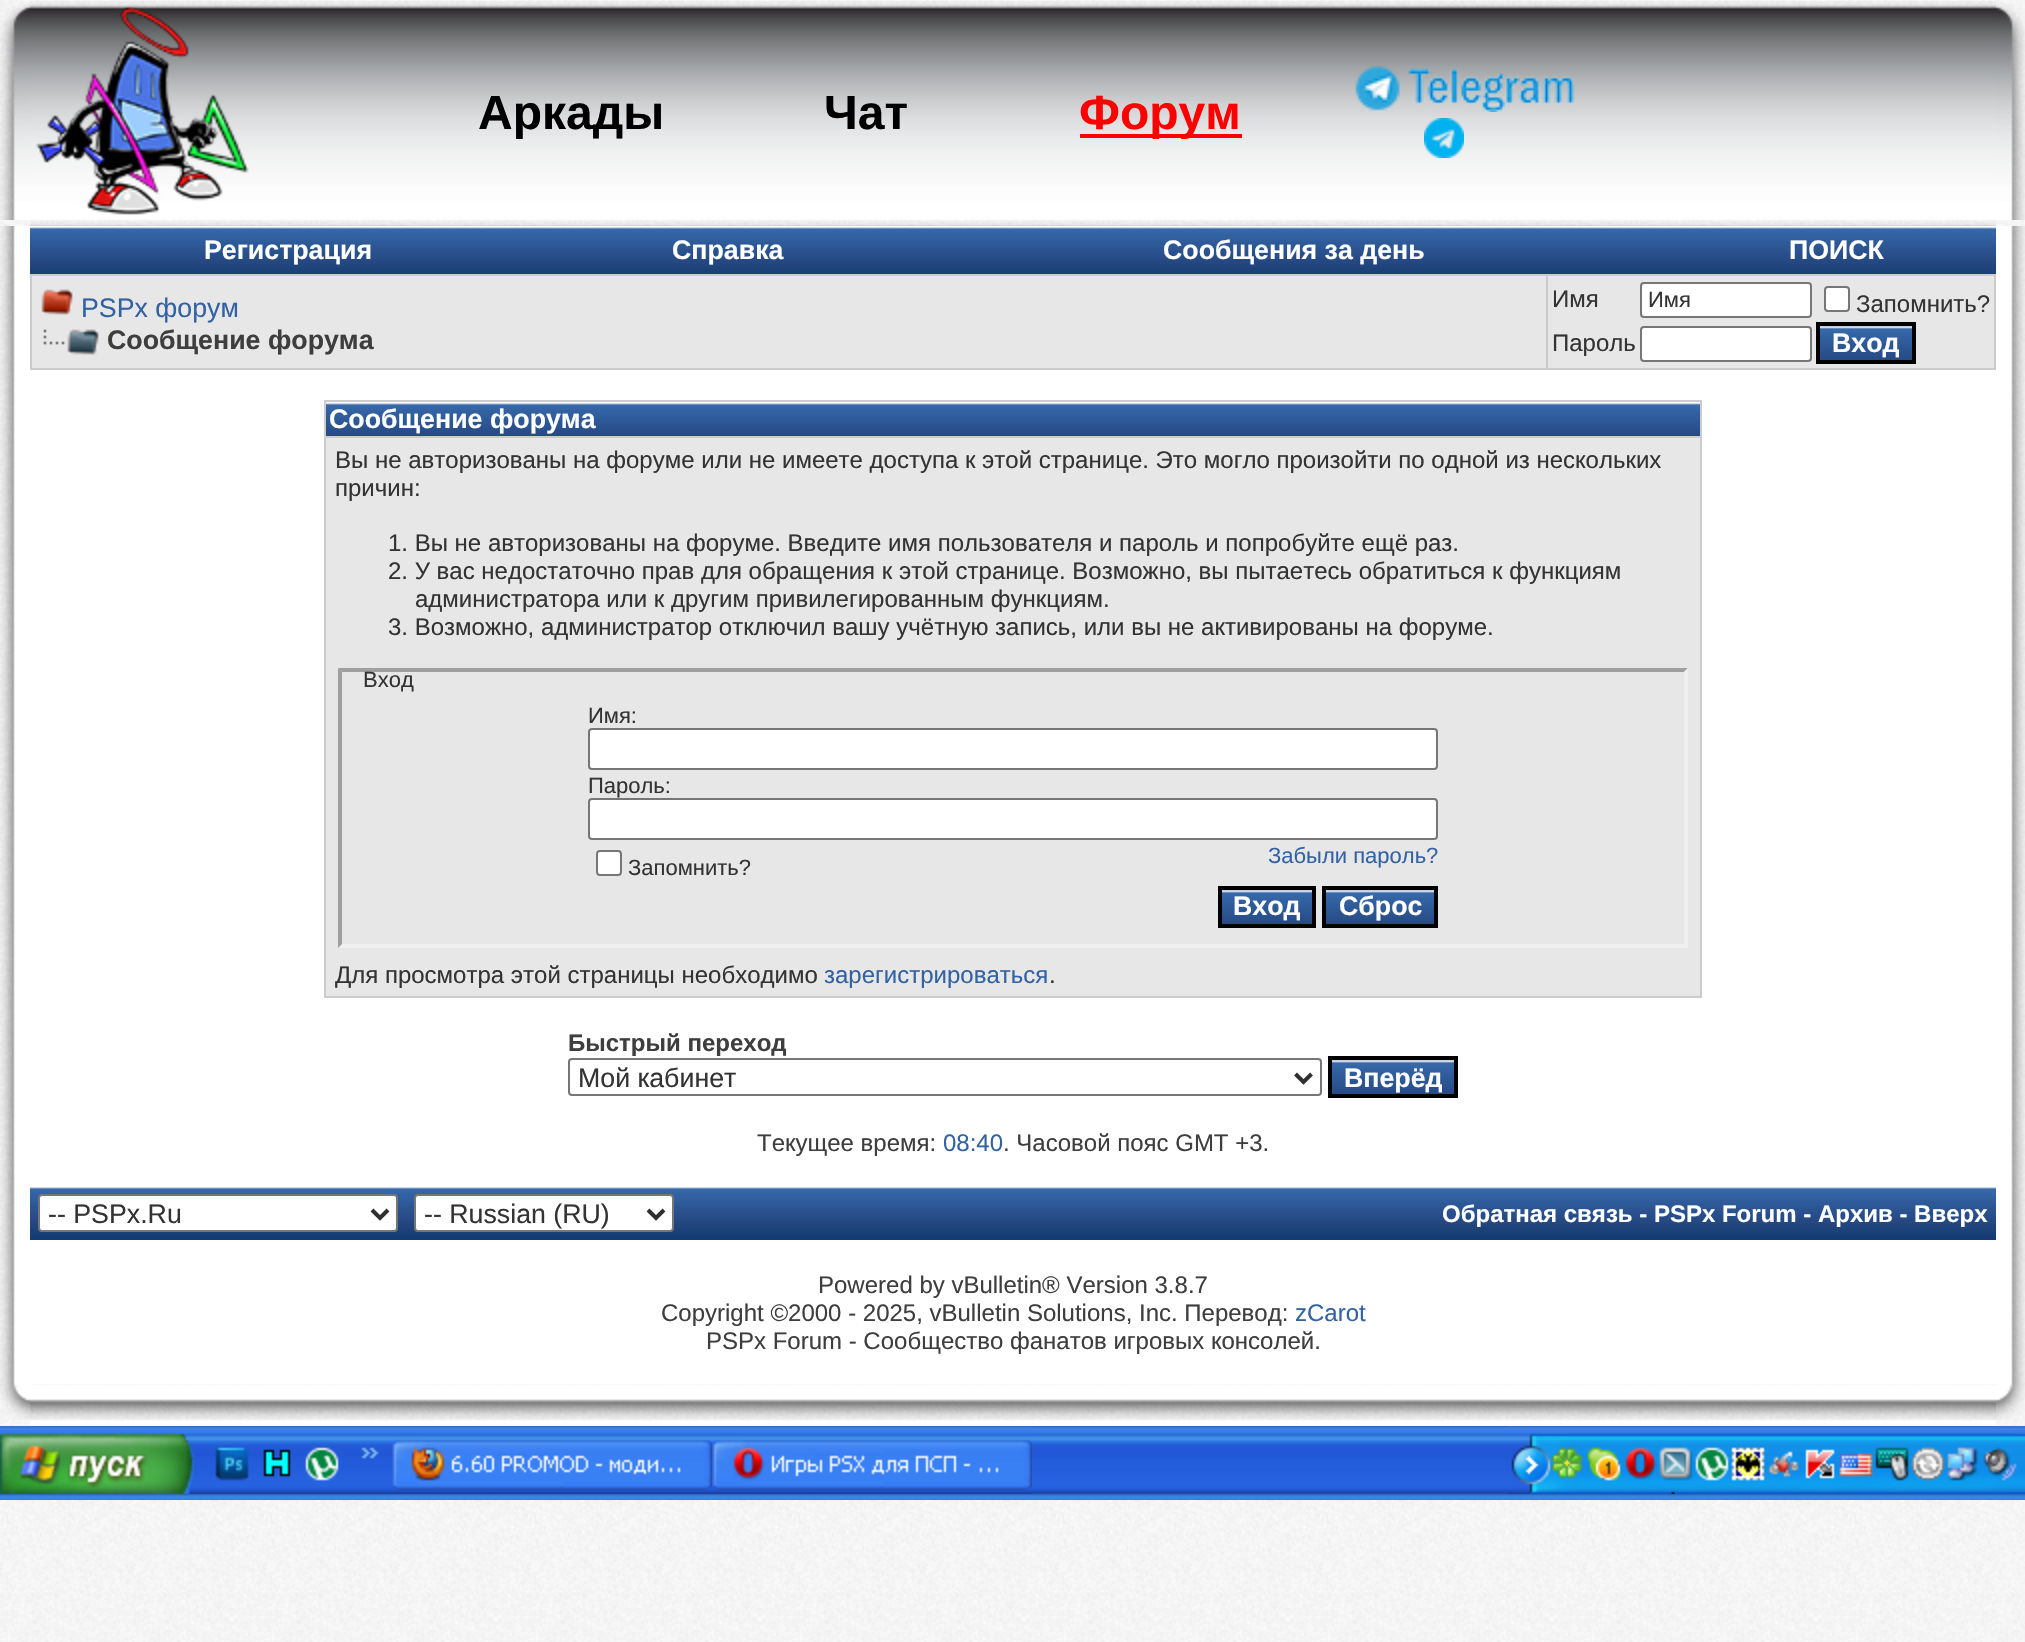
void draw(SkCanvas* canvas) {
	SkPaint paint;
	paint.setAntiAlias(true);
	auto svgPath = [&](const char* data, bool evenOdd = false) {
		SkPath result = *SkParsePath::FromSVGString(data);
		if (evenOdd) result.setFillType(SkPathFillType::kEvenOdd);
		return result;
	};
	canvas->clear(0xffffffff);
	canvas->drawImageRect(SkImages::DeferredFromEncodedData(SkData::MakeFromFileName("img1.png")), SkRect::MakeXYWH(0, 0, 2025, 1642), SkSamplingOptions());
	canvas->drawImageRect(SkImages::DeferredFromEncodedData(SkData::MakeFromFileName("img2.png")), SkRect::MakeXYWH(0, 2, 30, 218), SkSamplingOptions());
	canvas->drawImageRect(SkImages::DeferredFromEncodedData(SkData::MakeFromFileName("img3.png")), SkRect::MakeXYWH(30, 1, 1966, 225), SkSamplingOptions());
	canvas->drawImageRect(SkImages::DeferredFromEncodedData(SkData::MakeFromFileName("img4.png")), SkRect::MakeXYWH(35, 6, 214, 209), SkSamplingOptions());
	SkFont f1(fontMgr->matchFamilyStyle("Liberation Sans", SkFontStyle::Bold()), 48);
	f1.setSubpixel(true);
	paint.setColor(0xff000000);
	canvas->drawString("Аркады", 478, 129, f1, paint);
	canvas->drawString("Чат", 824, 129, f1, paint);
	paint.setColor(0xffff0000);
	canvas->drawRect(SkRect::MakeXYWH(1080, 134, 162, 4), paint);
	canvas->drawString("Форум", 1079, 129, f1, paint);
	canvas->drawImageRect(SkImages::DeferredFromEncodedData(SkData::MakeFromFileName("img5.png")), SkRect::MakeXYWH(1355, 65, 220, 47), SkSamplingOptions());
	canvas->drawImageRect(SkImages::DeferredFromEncodedData(SkData::MakeFromFileName("img6.png")), SkRect::MakeXYWH(1424, 118, 40, 40), SkSamplingOptions());
	canvas->drawImageRect(SkImages::DeferredFromEncodedData(SkData::MakeFromFileName("img7.png")), SkRect::MakeXYWH(1996, 2, 29, 218), SkSamplingOptions());
	canvas->drawImageRect(SkImages::DeferredFromEncodedData(SkData::MakeFromFileName("img8.png")), SkRect::MakeXYWH(0, 226, 30, 1158), SkSamplingOptions());
	paint.setColor(0xffffffff);
	canvas->drawRect(SkRect::MakeXYWH(30, 370, 1966, 1014), paint);
	canvas->drawImageRect(SkImages::DeferredFromEncodedData(SkData::MakeFromFileName("img9.png")), SkRect::MakeXYWH(30, 226, 516, 48), SkSamplingOptions());
	SkFont f2(fontMgr->matchFamilyStyle("Liberation Sans", SkFontStyle::Bold()), 26.75);
	f2.setSubpixel(true);
	canvas->drawString("Регистрация", 204, 259, f2, paint);
	canvas->drawImageRect(SkImages::DeferredFromEncodedData(SkData::MakeFromFileName("img10.png")), SkRect::MakeXYWH(546, 226, 364, 48), SkSamplingOptions());
	canvas->drawString("Справка", 672, 259, f2, paint);
	canvas->drawImageRect(SkImages::DeferredFromEncodedData(SkData::MakeFromFileName("img11.png")), SkRect::MakeXYWH(910, 226, 766, 48), SkSamplingOptions());
	canvas->drawString("Сообщения за день", 1163, 259, f2, paint);
	canvas->drawImageRect(SkImages::DeferredFromEncodedData(SkData::MakeFromFileName("img12.png")), SkRect::MakeXYWH(1676, 226, 320, 48), SkSamplingOptions());
	canvas->drawString("ПОИСК", 1789, 259, f2, paint);
	paint.setColor(0xffcccccc);
	canvas->drawRect(SkRect::MakeXYWH(30, 274, 1966, 96), paint);
	paint.setColor(0xffe7e7e7);
	canvas->drawRect(SkRect::MakeXYWH(32, 276, 1514, 92), paint);
	canvas->drawImageRect(SkImages::DeferredFromEncodedData(SkData::MakeFromFileName("img13.png")), SkRect::MakeXYWH(41, 289, 32, 26), SkSamplingOptions());
	SkFont f3(fontMgr->matchFamilyStyle("Liberation Sans", SkFontStyle::Normal()), 26.75);
	f3.setSubpixel(true);
	paint.setColor(0xff3362a3);
	canvas->drawString("PSPx форум", 81, 317, f3, paint);
	canvas->drawImageRect(SkImages::DeferredFromEncodedData(SkData::MakeFromFileName("img14.png")), SkRect::MakeXYWH(43, 329, 56, 26), SkSamplingOptions());
	paint.setColor(0xff3e3e3e);
	canvas->drawString("Сообщение форума", 107, 349, f2, paint);
	paint.setColor(0xffe7e7e7);
	canvas->drawRect(SkRect::MakeXYWH(1548, 276, 446, 92), paint);
	SkFont f4(fontMgr->matchFamilyStyle("Liberation Sans", SkFontStyle::Normal()), 24);
	f4.setSubpixel(true);
	paint.setColor(0xff333333);
	canvas->drawString("Имя", 1552, 307, f4, paint);
	paint.setColor(0xffffffff);
	canvas->drawRoundRect(SkRect::MakeXYWH(1641, 283, 170, 34), 3, 3, paint);
	paint.setStroke(true);
	paint.setStrokeWidth(2);
	paint.setColor(0xff767676);
	canvas->drawRoundRect(SkRect::MakeXYWH(1641, 283, 170, 34), 3, 3, paint);
	SkFont f5(fontMgr->matchFamilyStyle("Liberation Sans", SkFontStyle::Normal()), 22);
	f5.setSubpixel(true);
	paint.setStroke(false);
	paint.setColor(0xff333333);
	canvas->drawString("Имя", 1648, 307, f5, paint);
	paint.setColor(0xffffffff);
	canvas->drawRoundRect(SkRect::MakeXYWH(1825, 287, 24, 24), 3, 3, paint);
	paint.setStroke(true);
	paint.setColor(0xff767676);
	canvas->drawRoundRect(SkRect::MakeXYWH(1825, 287, 24, 24), 3, 3, paint);
	paint.setStroke(false);
	paint.setColor(0xff333333);
	canvas->drawString("Запомнить?", 1856, 312, f4, paint);
	canvas->drawString("Пароль", 1552, 351, f4, paint);
	paint.setColor(0xffffffff);
	canvas->drawRoundRect(SkRect::MakeXYWH(1641, 327, 170, 34), 3, 3, paint);
	paint.setStroke(true);
	paint.setColor(0xff767676);
	canvas->drawRoundRect(SkRect::MakeXYWH(1641, 327, 170, 34), 3, 3, paint);
	canvas->drawImageRect(SkImages::DeferredFromEncodedData(SkData::MakeFromFileName("img15.png")), SkRect::MakeXYWH(1820, 326, 92, 34), SkSamplingOptions());
	paint.setStrokeWidth(4);
	paint.setColor(0xff000000);
	canvas->drawRect(SkRect::MakeXYWH(1818, 324, 96, 38), paint);
	paint.setStroke(false);
	paint.setColor(0xffffffff);
	canvas->drawString("Вход", 1832, 352, f2, paint);
	paint.setColor(0xffcccccc);
	canvas->drawRect(SkRect::MakeXYWH(324, 400, 1378, 598), paint);
	canvas->drawImageRect(SkImages::DeferredFromEncodedData(SkData::MakeFromFileName("img16.png")), SkRect::MakeXYWH(326, 402, 1374, 34), SkSamplingOptions());
	paint.setColor(0xffffffff);
	canvas->drawString("Сообщение форума", 329, 428, f2, paint);
	paint.setColor(0xffe7e7e7);
	canvas->drawRect(SkRect::MakeXYWH(326, 438, 1374, 558), paint);
	paint.setColor(0xff333333);
	canvas->drawString("Вы не авторизованы на форуме или не имеете доступа к этой странице. Это могло произойти по одной из нескольких", 335, 468, f4, paint);
	canvas->drawString("причин:", 335, 496, f4, paint);
	canvas->drawString("1. Вы не авторизованы на форуме. Введите имя пользователя и пароль и попробуйте ещё раз.", 388, 551, f4, paint);
	canvas->drawString("2. У вас недостаточно прав для обращения к этой странице. Возможно, вы пытаетесь обратиться к функциям", 388, 579, f4, paint);
	canvas->drawString("администратора или к другим привилегированным функциям.", 415, 607, f4, paint);
	canvas->drawString("3. Возможно, администратор отключил вашу учётную запись, или вы не активированы на форуме.", 388, 635, f4, paint);
	paint.setColor(0xff9f9f9f);
	canvas->drawPath(svgPath("M338 668H1688L1684 672H342Z"), paint);
	paint.setColor(0xffefefef);
	canvas->drawPath(svgPath("M1688 668V948L1684 944V672Z"), paint);
	canvas->drawPath(svgPath("M1688 948H338L342 944H1684Z"), paint);
	paint.setColor(0xff9f9f9f);
	canvas->drawPath(svgPath("M338 948V668L342 672V944Z"), paint);
	paint.setColor(0xff333333);
	canvas->drawString("Вход", 363, 687, f5, paint);
	canvas->drawString("Имя:", 588, 723, f5, paint);
	paint.setColor(0xffffffff);
	canvas->drawRoundRect(SkRect::MakeXYWH(589, 729, 848, 40), 3, 3, paint);
	paint.setStroke(true);
	paint.setStrokeWidth(2);
	paint.setColor(0xff767676);
	canvas->drawRoundRect(SkRect::MakeXYWH(589, 729, 848, 40), 3, 3, paint);
	paint.setStroke(false);
	paint.setColor(0xff333333);
	canvas->drawString("Пароль:", 588, 793, f5, paint);
	paint.setColor(0xffffffff);
	canvas->drawRoundRect(SkRect::MakeXYWH(589, 799, 848, 40), 3, 3, paint);
	paint.setStroke(true);
	paint.setColor(0xff767676);
	canvas->drawRoundRect(SkRect::MakeXYWH(589, 799, 848, 40), 3, 3, paint);
	paint.setStroke(false);
	paint.setColor(0xffffffff);
	canvas->drawRoundRect(SkRect::MakeXYWH(597, 851, 24, 24), 3, 3, paint);
	paint.setStroke(true);
	paint.setColor(0xff767676);
	canvas->drawRoundRect(SkRect::MakeXYWH(597, 851, 24, 24), 3, 3, paint);
	paint.setStroke(false);
	paint.setColor(0xff333333);
	canvas->drawString("Запомнить?", 628, 875, f5, paint);
	paint.setColor(0xff3362a3);
	canvas->drawString("Забыли пароль?", 1268, 863, f5, paint);
	canvas->drawImageRect(SkImages::DeferredFromEncodedData(SkData::MakeFromFileName("img17.png")), SkRect::MakeXYWH(1222, 890, 90, 34), SkSamplingOptions());
	paint.setStroke(true);
	paint.setStrokeWidth(4);
	paint.setColor(0xff000000);
	canvas->drawRect(SkRect::MakeXYWH(1220, 888, 94, 38), paint);
	paint.setStroke(false);
	paint.setColor(0xffffffff);
	canvas->drawString("Вход", 1233, 915, f2, paint);
	canvas->drawImageRect(SkImages::DeferredFromEncodedData(SkData::MakeFromFileName("img18.png")), SkRect::MakeXYWH(1326, 890, 108, 34), SkSamplingOptions());
	paint.setStroke(true);
	paint.setColor(0xff000000);
	canvas->drawRect(SkRect::MakeXYWH(1324, 888, 112, 38), paint);
	paint.setStroke(false);
	paint.setColor(0xffffffff);
	canvas->drawString("Сброс", 1339, 915, f2, paint);
	paint.setColor(0xff333333);
	canvas->drawString("Для просмотра этой страницы необходимо", 335, 983, f4, paint);
	paint.setColor(0xff3362a3);
	canvas->drawString("зарегистрироваться", 824, 983, f4, paint);
	paint.setColor(0xff333333);
	canvas->drawString(".", 1049, 983, f4, paint);
	SkFont f6(fontMgr->matchFamilyStyle("Liberation Sans", SkFontStyle::Bold()), 24);
	f6.setSubpixel(true);
	paint.setColor(0xff3e3e3e);
	canvas->drawString("Быстрый переход", 568, 1051, f6, paint);
	paint.setStroke(true);
	paint.setStrokeWidth(2);
	paint.setColor(0xff767676);
	canvas->drawRoundRect(SkRect::MakeXYWH(569, 1059, 752, 36), 3, 3, paint);
	paint.setStrokeWidth(4);
	paint.setColor(0xff2f2f2f);
	canvas->drawPath(svgPath("M1295.5 1074L1303.5 1082L1311.5 1074"), paint);
	paint.setStroke(false);
	paint.setColor(0xff333333);
	canvas->drawString("Мой кабинет", 578, 1087, f3, paint);
	canvas->drawImageRect(SkImages::DeferredFromEncodedData(SkData::MakeFromFileName("img19.png")), SkRect::MakeXYWH(1332, 1060, 122, 34), SkSamplingOptions());
	paint.setStroke(true);
	paint.setColor(0xff000000);
	canvas->drawRect(SkRect::MakeXYWH(1330, 1058, 126, 38), paint);
	paint.setStroke(false);
	paint.setColor(0xffffffff);
	canvas->drawString("Вперёд", 1344, 1087, f2, paint);
	paint.setColor(0xff3e3e3e);
	canvas->drawString("Текущее время:", 757, 1151, f4, paint);
	paint.setColor(0xff3362a3);
	canvas->drawString("08:40", 943, 1151, f4, paint);
	paint.setColor(0xff3e3e3e);
	canvas->drawString(". Часовой пояс GMT +3.", 1003, 1151, f4, paint);
	canvas->drawImageRect(SkImages::DeferredFromEncodedData(SkData::MakeFromFileName("img20.png")), SkRect::MakeXYWH(30, 1186, 376, 54), SkSamplingOptions());
	paint.setColor(0xffffffff);
	canvas->drawRoundRect(SkRect::MakeXYWH(39, 1195, 358, 36), 3, 3, paint);
	paint.setStroke(true);
	paint.setStrokeWidth(2);
	paint.setColor(0xff767676);
	canvas->drawRoundRect(SkRect::MakeXYWH(39, 1195, 358, 36), 3, 3, paint);
	paint.setStrokeWidth(4);
	paint.setColor(0xff2f2f2f);
	canvas->drawPath(svgPath("M372 1210L380 1218L388 1210"), paint);
	paint.setStroke(false);
	paint.setColor(0xff333333);
	canvas->drawString("-- PSPx.Ru", 48, 1223, f3, paint);
	canvas->drawImageRect(SkImages::DeferredFromEncodedData(SkData::MakeFromFileName("img21.png")), SkRect::MakeXYWH(406, 1186, 276, 54), SkSamplingOptions());
	paint.setColor(0xffffffff);
	canvas->drawRoundRect(SkRect::MakeXYWH(415, 1195, 258, 36), 3, 3, paint);
	paint.setStroke(true);
	paint.setStrokeWidth(2);
	paint.setColor(0xff767676);
	canvas->drawRoundRect(SkRect::MakeXYWH(415, 1195, 258, 36), 3, 3, paint);
	paint.setStrokeWidth(4);
	paint.setColor(0xff2f2f2f);
	canvas->drawPath(svgPath("M648 1210L656 1218L664 1210"), paint);
	paint.setStroke(false);
	paint.setColor(0xff333333);
	canvas->drawString("-- Russian (RU)", 424, 1223, f3, paint);
	canvas->drawImageRect(SkImages::DeferredFromEncodedData(SkData::MakeFromFileName("img22.png")), SkRect::MakeXYWH(682, 1186, 1314, 54), SkSamplingOptions());
	paint.setColor(0xffffffff);
	canvas->drawString("Обратная связь - PSPx Forum - Архив - Вверх", 1442, 1222, f6, paint);
	paint.setColor(0xff3e3e3e);
	canvas->drawString("Powered by vBulletin® Version 3.8.7", 818, 1293, f4, paint);
	canvas->drawString("Copyright ©2000 - 2025, vBulletin Solutions, Inc. Перевод:", 661, 1321, f4, paint);
	paint.setColor(0xff3362a3);
	canvas->drawString("zCarot", 1295, 1321, f4, paint);
	paint.setColor(0xff3e3e3e);
	canvas->drawString("PSPx Forum - Сообщество фанатов игровых консолей.", 706, 1349, f4, paint);
	canvas->drawImageRect(SkImages::DeferredFromEncodedData(SkData::MakeFromFileName("img23.png")), SkRect::MakeXYWH(1996, 226, 29, 1158), SkSamplingOptions());
	canvas->drawImageRect(SkImages::DeferredFromEncodedData(SkData::MakeFromFileName("img24.png")), SkRect::MakeXYWH(0, 1384, 30, 36), SkSamplingOptions());
	canvas->drawImageRect(SkImages::DeferredFromEncodedData(SkData::MakeFromFileName("img25.png")), SkRect::MakeXYWH(30, 1384, 1966, 42), SkSamplingOptions());
	canvas->drawImageRect(SkImages::DeferredFromEncodedData(SkData::MakeFromFileName("img26.png")), SkRect::MakeXYWH(1996, 1384, 29, 36), SkSamplingOptions());
	canvas->drawImageRect(SkImages::DeferredFromEncodedData(SkData::MakeFromFileName("img27.png")), SkRect::MakeXYWH(0, 1426, 2025, 74), SkSamplingOptions());
	canvas->drawImageRect(SkImages::DeferredFromEncodedData(SkData::MakeFromFileName("img28.png")), SkRect::MakeXYWH(0, 1426, 200, 68), SkSamplingOptions());
	canvas->drawImageRect(SkImages::DeferredFromEncodedData(SkData::MakeFromFileName("img29.png")), SkRect::MakeXYWH(200, 1426, 56, 68), SkSamplingOptions());
	canvas->drawImageRect(SkImages::DeferredFromEncodedData(SkData::MakeFromFileName("img30.png")), SkRect::MakeXYWH(256, 1426, 42, 68), SkSamplingOptions());
	canvas->drawImageRect(SkImages::DeferredFromEncodedData(SkData::MakeFromFileName("img31.png")), SkRect::MakeXYWH(298, 1426, 48, 68), SkSamplingOptions());
	canvas->drawImageRect(SkImages::DeferredFromEncodedData(SkData::MakeFromFileName("img32.png")), SkRect::MakeXYWH(346, 1426, 46, 68), SkSamplingOptions());
	canvas->drawImageRect(SkImages::DeferredFromEncodedData(SkData::MakeFromFileName("img33.png")), SkRect::MakeXYWH(392, 1426, 320, 68), SkSamplingOptions());
	canvas->drawImageRect(SkImages::DeferredFromEncodedData(SkData::MakeFromFileName("img34.png")), SkRect::MakeXYWH(712, 1426, 320, 68), SkSamplingOptions());
	canvas->drawImageRect(SkImages::DeferredFromEncodedData(SkData::MakeFromFileName("img35.png")), SkRect::MakeXYWH(1508, 1426, 517, 68), SkSamplingOptions());
}
